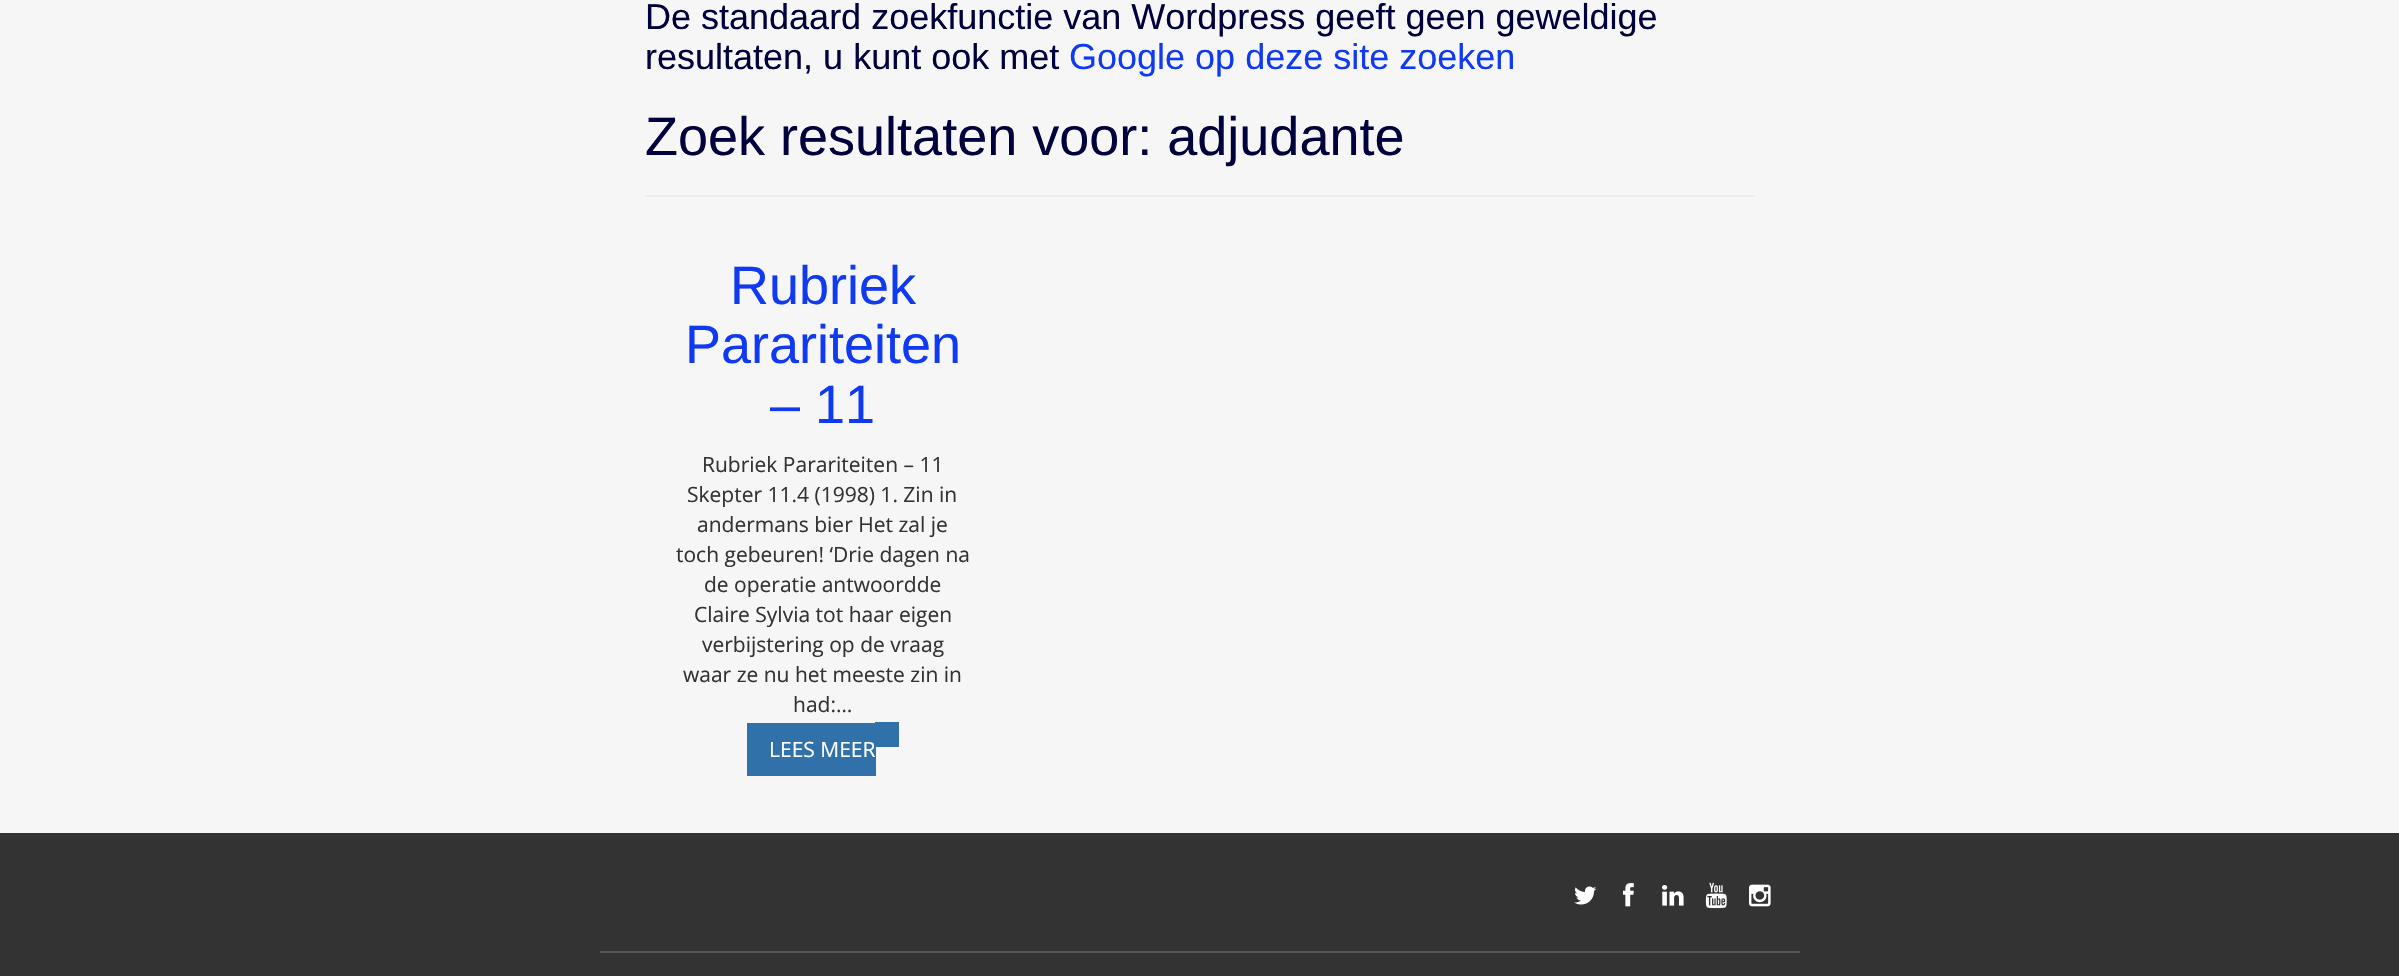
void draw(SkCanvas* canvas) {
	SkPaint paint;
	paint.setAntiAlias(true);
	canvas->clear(0xfff6f6f6);
	paint.setColor(0xffeeeeee);
	canvas->drawRect(SkRect::MakeXYWH(645, 195, 1110, 2), paint);
	SkFont f1(fontMgr->matchFamilyStyle("Liberation Sans", SkFontStyle::Normal()), 36);
	f1.setSubpixel(true);
	paint.setColor(0xff00003d);
	canvas->drawString("De standaard zoekfunctie van Wordpress geeft geen geweldige", 645, 29, f1, paint);
	canvas->drawString("resultaten, u kunt ook met", 645, 69, f1, paint);
	paint.setColor(0xff103af2);
	canvas->drawString("Google op deze site zoeken", 1069, 69, f1, paint);
	SkFont f2(fontMgr->matchFamilyStyle("Liberation Sans", SkFontStyle::Normal()), 54);
	f2.setSubpixel(true);
	paint.setColor(0xff00003d);
	canvas->drawString("Zoek resultaten voor: adjudante", 645, 155, f2, paint);
	paint.setColor(0xff103af2);
	canvas->drawString("Rubriek", 730, 304, f2, paint);
	canvas->drawString("Parariteiten", 685, 363, f2, paint);
	canvas->drawString("– 11", 770, 423, f2, paint);
	SkFont f3(fontMgr->matchFamilyStyle("Open Sans", SkFontStyle::Normal()), 21);
	f3.setSubpixel(true);
	paint.setColor(0xff333333);
	canvas->drawString("Rubriek Parariteiten – 11", 702, 472, f3, paint);
	canvas->drawString("Skepter 11.4 (1998) 1. Zin in", 687, 502, f3, paint);
	canvas->drawString("andermans bier Het zal je", 697, 532, f3, paint);
	canvas->drawString("toch gebeuren! ‘Drie dagen na", 676, 562, f3, paint);
	canvas->drawString("de operatie antwoordde", 704, 592, f3, paint);
	canvas->drawString("Claire Sylvia tot haar eigen", 694, 622, f3, paint);
	canvas->drawString("verbijstering op de vraag", 702, 652, f3, paint);
	canvas->drawString("waar ze nu het meeste zin in", 683, 682, f3, paint);
	canvas->drawString("had:…", 793, 712, f3, paint);
	paint.setColor(0xff3071a9);
	canvas->drawRect(SkRect::MakeXYWH(747, 723, 129, 53), paint);
	canvas->drawRect(SkRect::MakeXYWH(875, 722, 24, 25), paint);
	paint.setColor(0xffffffff);
	canvas->drawString("LEES MEER", 769, 757, f3, paint);
	paint.setColor(0xff333333);
	canvas->drawRect(SkRect::MakeXYWH(0, 833, 2399, 143), paint);
	paint.setColor(0xff555555);
	canvas->drawRect(SkRect::MakeXYWH(600, 951, 1200, 2), paint);
	canvas->drawImageRect(SkImages::DeferredFromEncodedData(SkData::MakeFromFileName("img1.png")), SkRect::MakeXYWH(1574, 886, 23, 19), SkSamplingOptions());
	canvas->drawImageRect(SkImages::DeferredFromEncodedData(SkData::MakeFromFileName("img2.png")), SkRect::MakeXYWH(1623, 883, 11, 24), SkSamplingOptions());
	canvas->drawImageRect(SkImages::DeferredFromEncodedData(SkData::MakeFromFileName("img3.png")), SkRect::MakeXYWH(1662, 885, 22, 21), SkSamplingOptions());
	canvas->drawImageRect(SkImages::DeferredFromEncodedData(SkData::MakeFromFileName("img4.png")), SkRect::MakeXYWH(1705, 882, 22, 27), SkSamplingOptions());
	canvas->drawImageRect(SkImages::DeferredFromEncodedData(SkData::MakeFromFileName("img5.png")), SkRect::MakeXYWH(1749, 884, 22, 23), SkSamplingOptions());
}
